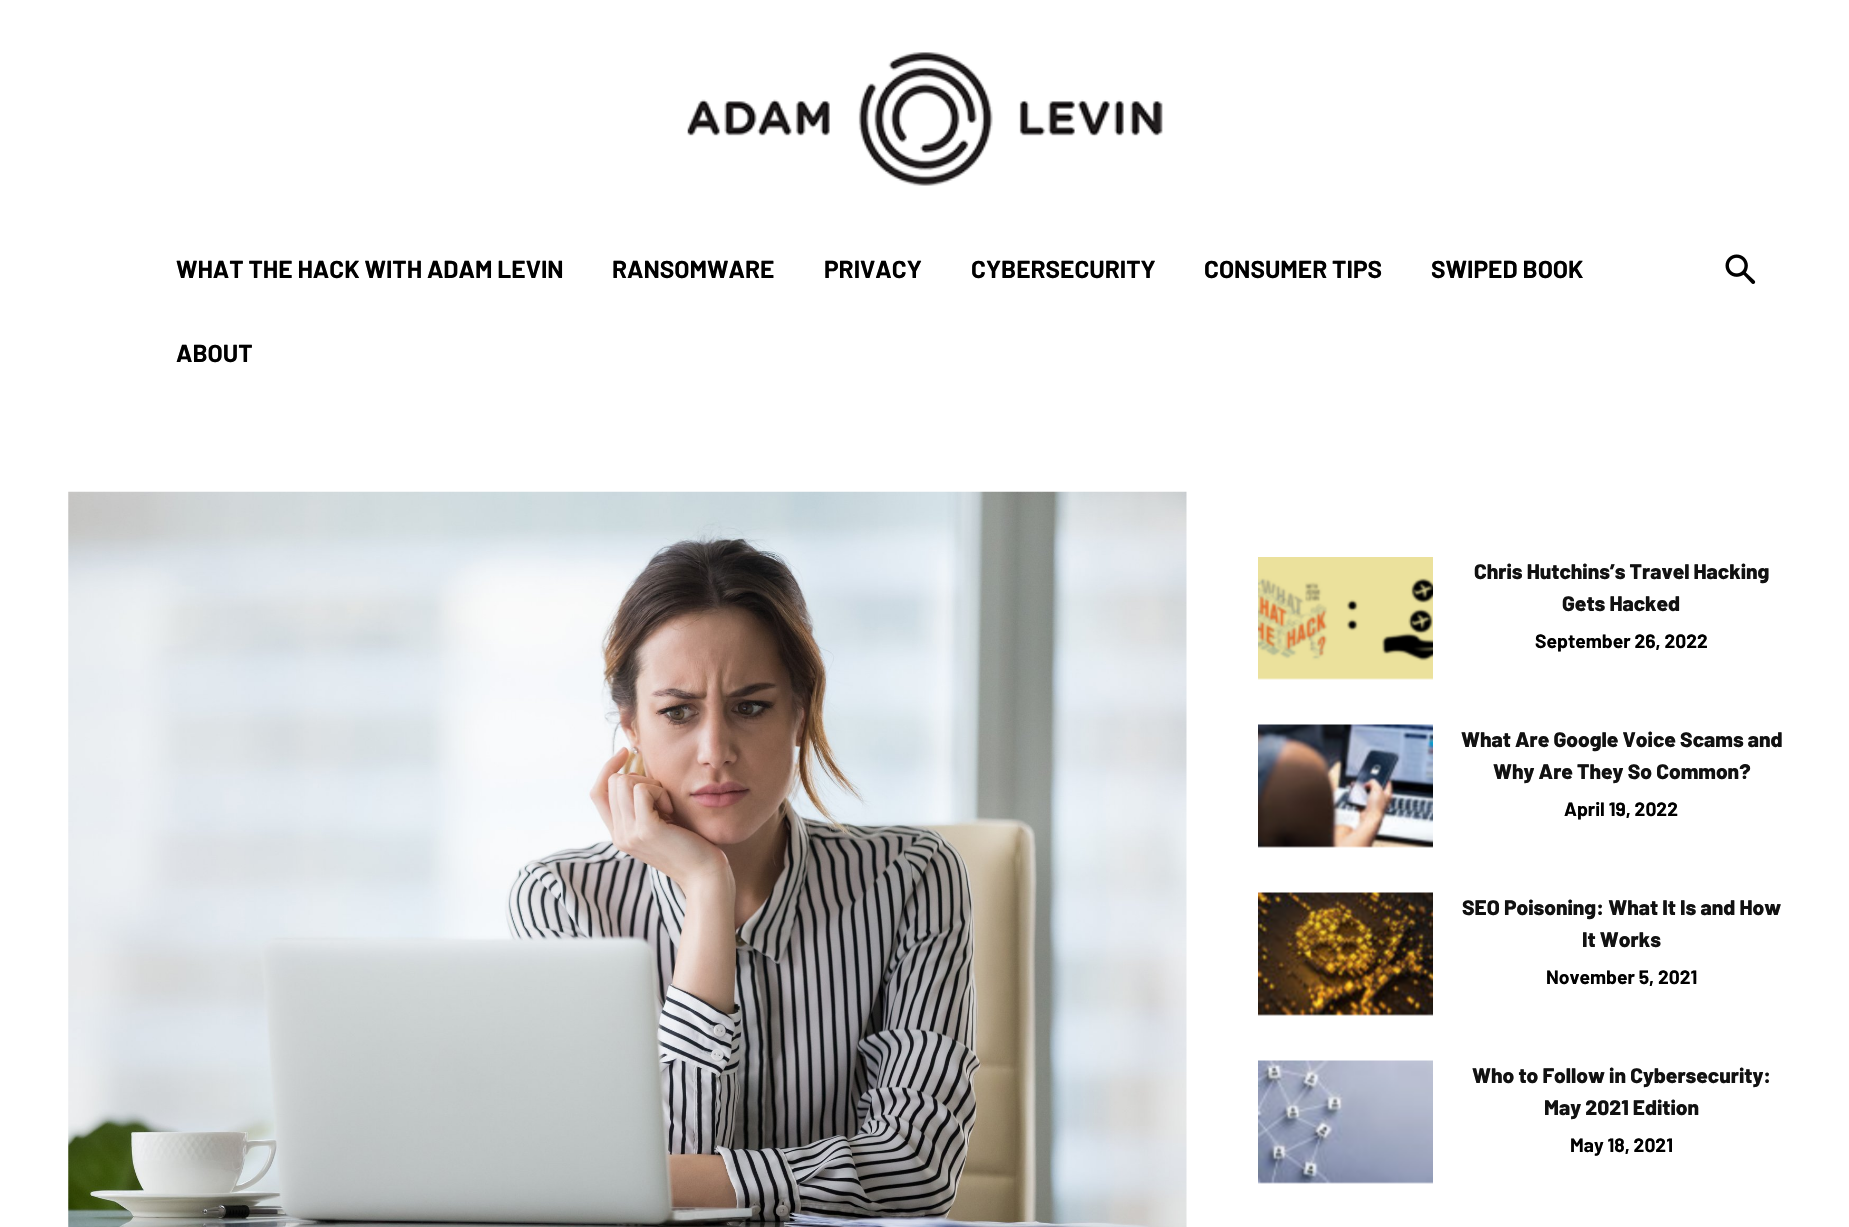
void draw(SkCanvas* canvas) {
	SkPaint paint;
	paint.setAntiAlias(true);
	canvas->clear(0xffffffff);
	canvas->drawImageRect(SkImages::DeferredFromEncodedData(SkData::MakeFromFileName("img1.png")), SkRect::MakeXYWH(687, 52, 476, 134), SkSamplingOptions());
	SkFont f1(fontMgr->matchFamilyStyle("Barlow", SkFontStyle::Bold()), 24.5);
	f1.setSubpixel(true);
	paint.setColor(0xff000000);
	canvas->drawString("WHAT THE HACK WITH ADAM LEVIN", 176, 278, f1, paint);
	canvas->drawString("RANSOMWARE", 612, 278, f1, paint);
	canvas->drawString("PRIVACY", 824, 278, f1, paint);
	canvas->drawString("CYBERSECURITY", 971, 278, f1, paint);
	canvas->drawString("CONSUMER TIPS", 1204, 278, f1, paint);
	canvas->drawString("SWIPED BOOK", 1431, 278, f1, paint);
	canvas->drawString("ABOUT", 176, 362, f1, paint);
	canvas->drawImageRect(SkImages::DeferredFromEncodedData(SkData::MakeFromFileName("img2.png")), SkRect::MakeXYWH(1725, 254, 31, 30), SkSamplingOptions());
	canvas->drawImageRect(SkImages::DeferredFromEncodedData(SkData::MakeFromFileName("img3.png")), SkRect::MakeXYWH(68, 491, 1119, 736), SkSamplingOptions());
	canvas->drawImageRect(SkImages::DeferredFromEncodedData(SkData::MakeFromFileName("img4.png")), SkRect::MakeXYWH(1258, 557, 175, 123), SkSamplingOptions());
	SkFont f2(fontMgr->matchFamilyStyle("Barlow", SkFontStyle(800, SkFontStyle::kNormal_Width, SkFontStyle::kUpright_Slant)), 21);
	f2.setSubpixel(true);
	paint.setColor(0xff111111);
	canvas->drawString("Chris Hutchins’s Travel Hacking", 1474, 579, f2, paint);
	canvas->drawString("Gets Hacked", 1562, 611, f2, paint);
	SkFont f3(fontMgr->matchFamilyStyle("Barlow", SkFontStyle::Bold()), 19.25);
	f3.setSubpixel(true);
	paint.setColor(0xff000000);
	canvas->drawString("September 26, 2022", 1535, 648, f3, paint);
	canvas->drawImageRect(SkImages::DeferredFromEncodedData(SkData::MakeFromFileName("img5.png")), SkRect::MakeXYWH(1258, 724, 175, 124), SkSamplingOptions());
	paint.setColor(0xff111111);
	canvas->drawString("What Are Google Voice Scams and", 1461, 747, f2, paint);
	canvas->drawString("Why Are They So Common?", 1493, 779, f2, paint);
	paint.setColor(0xff000000);
	canvas->drawString("April 19, 2022", 1564, 816, f3, paint);
	canvas->drawImageRect(SkImages::DeferredFromEncodedData(SkData::MakeFromFileName("img6.png")), SkRect::MakeXYWH(1258, 892, 175, 124), SkSamplingOptions());
	paint.setColor(0xff111111);
	canvas->drawString("SEO Poisoning: What It Is and How", 1462, 915, f2, paint);
	canvas->drawString("It Works", 1582, 947, f2, paint);
	paint.setColor(0xff000000);
	canvas->drawString("November 5, 2021", 1546, 984, f3, paint);
	canvas->drawImageRect(SkImages::DeferredFromEncodedData(SkData::MakeFromFileName("img7.png")), SkRect::MakeXYWH(1258, 1060, 175, 124), SkSamplingOptions());
	paint.setColor(0xff111111);
	canvas->drawString("Who to Follow in Cybersecurity:", 1472, 1083, f2, paint);
	canvas->drawString("May 2021 Edition", 1544, 1115, f2, paint);
	paint.setColor(0xff000000);
	canvas->drawString("May 18, 2021", 1570, 1152, f3, paint);
}
